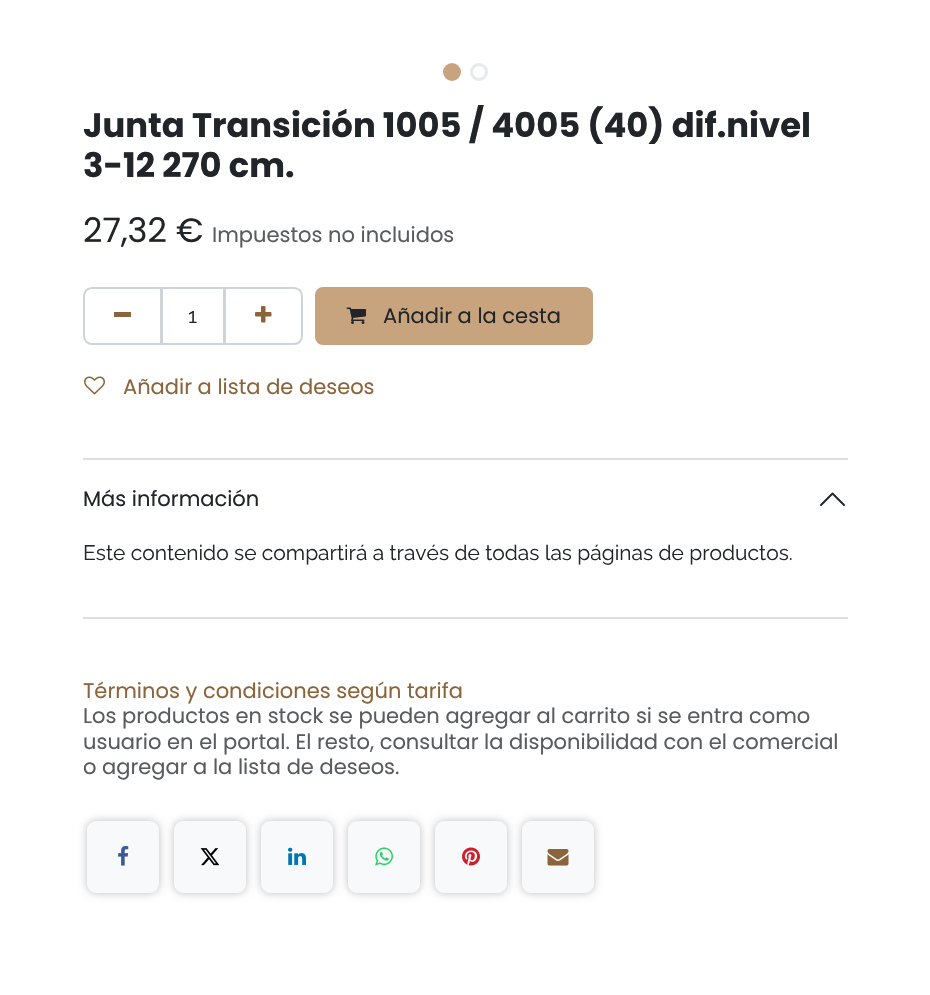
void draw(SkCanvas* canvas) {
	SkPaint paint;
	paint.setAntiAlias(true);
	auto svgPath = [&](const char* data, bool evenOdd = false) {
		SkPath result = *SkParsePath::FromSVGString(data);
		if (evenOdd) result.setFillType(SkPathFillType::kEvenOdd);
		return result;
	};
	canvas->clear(0xffffffff);
	paint.setColor(0xffc8a47e);
	canvas->drawCircle(452, 72, 7.5, paint);
	paint.setStroke(true);
	paint.setStrokeWidth(3);
	canvas->drawCircle(452, 72, 7.5, paint);
	paint.setColor(0xffe7eaed);
	canvas->drawCircle(479, 72, 7.5, paint);
	SkFont f1(fontMgr->matchFamilyStyle("Poppins", SkFontStyle::Bold()), 33.8);
	f1.setSubpixel(true);
	paint.setStroke(false);
	paint.setColor(0xff212529);
	canvas->drawString("Junta Transición 1005 / 4005 (40) dif.nivel", 83, 137, f1, paint);
	canvas->drawString("3-12 270 cm.", 83, 177, f1, paint);
	SkFont f2(fontMgr->matchFamilyStyle("Poppins", SkFontStyle::Normal()), 33.8);
	f2.setSubpixel(true);
	canvas->drawString("27,32 €", 83, 242, f2, paint);
	SkFont f3(fontMgr->matchFamilyStyle("Poppins", SkFontStyle::Normal()), 21);
	f3.setSubpixel(true);
	paint.setColor(0xff595c5f);
	canvas->drawString("Impuestos no incluidos", 212, 242, f3, paint);
	paint.setStroke(true);
	paint.setStrokeWidth(2);
	paint.setColor(0xffced4da);
	canvas->drawRect(SkRect::MakeXYWH(162, 288, 62, 56), paint);
	canvas->drawPath(svgPath("M92 288H161V344H92C87.5 344 84 340.5 84 336V296C84 291.5 87.5 288 92 288Z"), paint);
	paint.setStroke(false);
	paint.setColor(0xff8b643b);
	canvas->drawRect(SkRect::MakeXYWH(114, 312, 17, 5), paint);
	SkFont f4(fontMgr->matchFamilyStyle("Raleway", SkFontStyle::Normal()), 21);
	f4.setSubpixel(true);
	paint.setColor(0xff212529);
	canvas->drawString("1", 188, 323, f4, paint);
	paint.setStroke(true);
	paint.setColor(0xffced4da);
	canvas->drawPath(svgPath("M225 288H294C298.5 288 302 291.5 302 296V336C302 340.5 298.5 344 294 344H225Z"), paint);
	canvas->drawImageRect(SkImages::DeferredFromEncodedData(SkData::MakeFromFileName("img1.png")), SkRect::MakeXYWH(255, 306, 17, 17), SkSamplingOptions());
	paint.setStroke(false);
	paint.setColor(0xffc8a47e);
	canvas->drawRoundRect(SkRect::MakeXYWH(316, 288, 276, 56), 7, 7, paint);
	paint.setStroke(true);
	canvas->drawRoundRect(SkRect::MakeXYWH(316, 288, 276, 56), 7, 7, paint);
	canvas->drawImageRect(SkImages::DeferredFromEncodedData(SkData::MakeFromFileName("img2.png")), SkRect::MakeXYWH(346, 307, 20, 17), SkSamplingOptions());
	paint.setStroke(false);
	paint.setColor(0xff212529);
	canvas->drawString("Añadir a la cesta", 383, 323, f3, paint);
	canvas->drawImageRect(SkImages::DeferredFromEncodedData(SkData::MakeFromFileName("img3.png")), SkRect::MakeXYWH(84, 376, 21, 19), SkSamplingOptions());
	paint.setColor(0xff8b643b);
	canvas->drawString("Añadir a lista de deseos", 123, 394, f3, paint);
	paint.setColor(0xffdededf);
	canvas->drawRect(SkRect::MakeXYWH(83, 458, 765, 2), paint);
	canvas->drawRect(SkRect::MakeXYWH(83, 617, 765, 2), paint);
	paint.setColor(0xff212529);
	canvas->drawString("Más información", 83, 506, f3, paint);
	paint.setStroke(true);
	paint.setStrokeWidth(1.9);
	paint.setStrokeCap(SkPaint::kRound_Cap);
	paint.setStrokeJoin(SkPaint::kRound_Join);
	canvas->drawPath(svgPath("M844 505L832.5 493.5L821 505"), paint);
	paint.setStroke(false);
	canvas->drawString("Este contenido se compartirá a través de todas las páginas de productos.", 83, 560, f4, paint);
	paint.setColor(0xff8b643b);
	canvas->drawString("Términos y condiciones según tarifa", 83, 698, f3, paint);
	paint.setColor(0xff595c5f);
	canvas->drawString("Los productos en stock se pueden agregar al carrito si se entra como", 83, 723, f3, paint);
	canvas->drawString("usuario en el portal. El resto, consultar la disponibilidad con el comercial", 83, 749, f3, paint);
	canvas->drawString("o agregar a la lista de deseos.", 83, 774, f3, paint);
	paint.setColor(0x40000000);
	paint.setMaskFilter(SkMaskFilter::MakeBlur(kNormal_SkBlurStyle, 4));
	canvas->drawRoundRect(SkRect::MakeXYWH(87, 821, 72, 72), 9, 9, paint);
	paint.setMaskFilter(nullptr);
	paint.setColor(0xfff8f9fa);
	canvas->drawRoundRect(SkRect::MakeXYWH(87, 821, 72, 72), 9, 9, paint);
	canvas->drawImageRect(SkImages::DeferredFromEncodedData(SkData::MakeFromFileName("img4.png")), SkRect::MakeXYWH(118, 846, 11, 20), SkSamplingOptions());
	paint.setColor(0x40000000);
	paint.setMaskFilter(SkMaskFilter::MakeBlur(kNormal_SkBlurStyle, 4));
	canvas->drawRoundRect(SkRect::MakeXYWH(174, 821, 72, 72), 9, 9, paint);
	paint.setMaskFilter(nullptr);
	paint.setColor(0xfff8f9fa);
	canvas->drawRoundRect(SkRect::MakeXYWH(174, 821, 72, 72), 9, 9, paint);
	canvas->drawImageRect(SkImages::DeferredFromEncodedData(SkData::MakeFromFileName("img5.png")), SkRect::MakeXYWH(200, 848, 20, 18), SkSamplingOptions());
	paint.setColor(0x40000000);
	paint.setMaskFilter(SkMaskFilter::MakeBlur(kNormal_SkBlurStyle, 4));
	canvas->drawRoundRect(SkRect::MakeXYWH(261, 821, 72, 72), 9, 9, paint);
	paint.setMaskFilter(nullptr);
	paint.setColor(0xfff8f9fa);
	canvas->drawRoundRect(SkRect::MakeXYWH(261, 821, 72, 72), 9, 9, paint);
	canvas->drawImageRect(SkImages::DeferredFromEncodedData(SkData::MakeFromFileName("img6.png")), SkRect::MakeXYWH(288, 847, 18, 18), SkSamplingOptions());
	paint.setColor(0x40000000);
	paint.setMaskFilter(SkMaskFilter::MakeBlur(kNormal_SkBlurStyle, 4));
	canvas->drawRoundRect(SkRect::MakeXYWH(348, 821, 72, 72), 9, 9, paint);
	paint.setMaskFilter(nullptr);
	paint.setColor(0xfff8f9fa);
	canvas->drawRoundRect(SkRect::MakeXYWH(348, 821, 72, 72), 9, 9, paint);
	canvas->drawImageRect(SkImages::DeferredFromEncodedData(SkData::MakeFromFileName("img7.png")), SkRect::MakeXYWH(375, 847, 18, 19), SkSamplingOptions());
	paint.setColor(0x40000000);
	paint.setMaskFilter(SkMaskFilter::MakeBlur(kNormal_SkBlurStyle, 4));
	canvas->drawRoundRect(SkRect::MakeXYWH(435, 821, 72, 72), 9, 9, paint);
	paint.setMaskFilter(nullptr);
	paint.setColor(0xfff8f9fa);
	canvas->drawRoundRect(SkRect::MakeXYWH(435, 821, 72, 72), 9, 9, paint);
	canvas->drawImageRect(SkImages::DeferredFromEncodedData(SkData::MakeFromFileName("img8.png")), SkRect::MakeXYWH(462, 847, 18, 19), SkSamplingOptions());
	paint.setColor(0x40000000);
	paint.setMaskFilter(SkMaskFilter::MakeBlur(kNormal_SkBlurStyle, 4));
	canvas->drawRoundRect(SkRect::MakeXYWH(522, 821, 72, 72), 9, 9, paint);
	paint.setMaskFilter(nullptr);
	paint.setColor(0xfff8f9fa);
	canvas->drawRoundRect(SkRect::MakeXYWH(522, 821, 72, 72), 9, 9, paint);
	canvas->drawImageRect(SkImages::DeferredFromEncodedData(SkData::MakeFromFileName("img9.png")), SkRect::MakeXYWH(547, 849, 22, 17), SkSamplingOptions());
}
